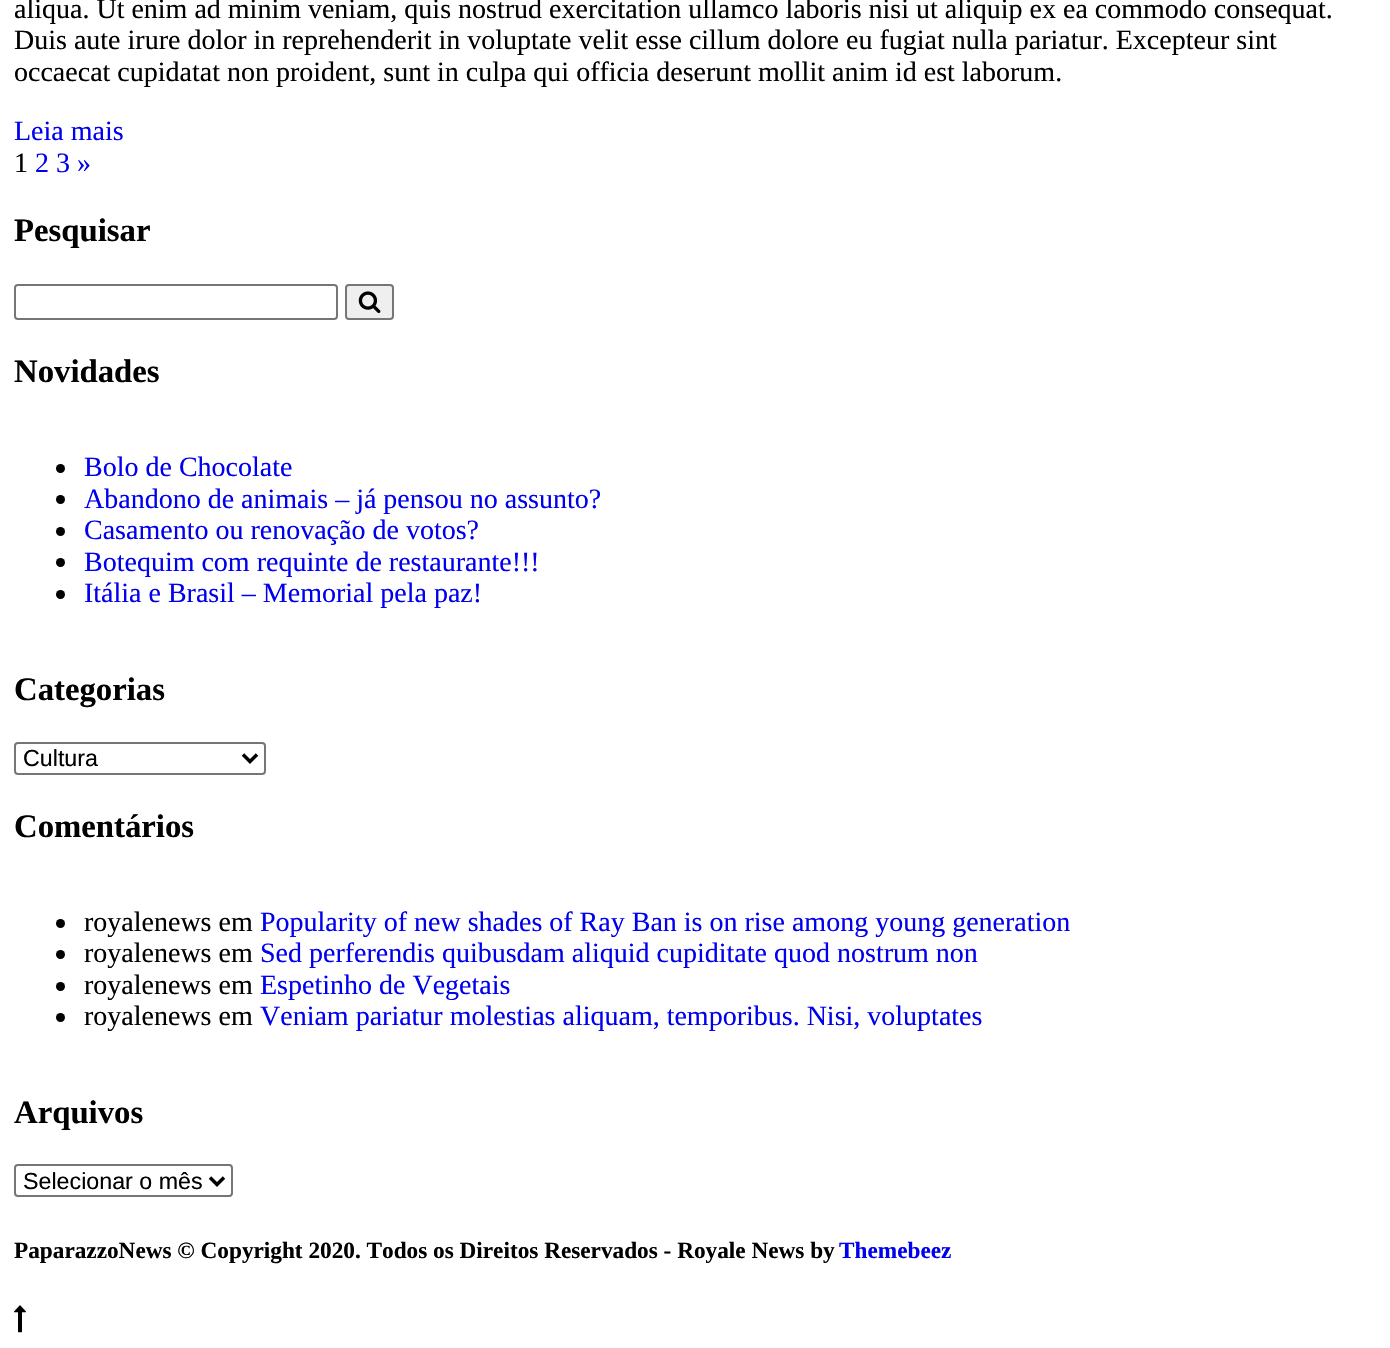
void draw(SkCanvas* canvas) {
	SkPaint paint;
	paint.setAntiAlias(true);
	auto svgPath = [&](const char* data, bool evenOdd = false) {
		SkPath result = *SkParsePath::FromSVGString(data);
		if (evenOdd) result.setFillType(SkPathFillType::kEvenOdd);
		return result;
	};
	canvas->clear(0xffffffff);
	SkFont f1(fontMgr->matchFamilyStyle("Liberation Serif", SkFontStyle::Normal()), 28);
	f1.setSubpixel(true);
	paint.setColor(0xff000000);
	canvas->drawString("aliqua. Ut enim ad minim veniam, quis nostrud exercitation ullamco laboris nisi ut aliquip ex ea commodo consequat.", 14, 18, f1, paint);
	canvas->drawString("Duis aute irure dolor in reprehenderit in voluptate velit esse cillum dolore eu fugiat nulla pariatur. Excepteur sint", 14, 49, f1, paint);
	canvas->drawString("occaecat cupidatat non proident, sunt in culpa qui officia deserunt mollit anim id est laborum.", 14, 81, f1, paint);
	paint.setColor(0xff0000ee);
	canvas->drawString("Leia mais", 14, 140, f1, paint);
	paint.setColor(0xff000000);
	canvas->drawString("1", 14, 172, f1, paint);
	paint.setColor(0xff0000ee);
	canvas->drawString("2 3 »", 35, 172, f1, paint);
	SkFont f2(fontMgr->matchFamilyStyle("Liberation Serif", SkFontStyle::Bold()), 32.75);
	f2.setSubpixel(true);
	paint.setColor(0xff000000);
	canvas->drawString("Pesquisar", 14, 241, f2, paint);
	paint.setStroke(true);
	paint.setStrokeWidth(2);
	paint.setColor(0xff767676);
	canvas->drawRoundRect(SkRect::MakeXYWH(15, 285, 322, 34), 3, 3, paint);
	paint.setStroke(false);
	paint.setColor(0xffefefef);
	canvas->drawRoundRect(SkRect::MakeXYWH(346, 285, 47, 34), 3, 3, paint);
	paint.setStroke(true);
	paint.setColor(0xff767676);
	canvas->drawRoundRect(SkRect::MakeXYWH(346, 285, 47, 34), 3, 3, paint);
	canvas->drawImageRect(SkImages::DeferredFromEncodedData(SkData::MakeFromFileName("img1.png")), SkRect::MakeXYWH(358, 291, 23, 23), SkSamplingOptions());
	paint.setStroke(false);
	paint.setColor(0xff000000);
	canvas->drawString("Novidades", 14, 382, f2, paint);
	canvas->drawCircle(60.5, 468.5, 4.5, paint);
	paint.setColor(0xff0000ee);
	canvas->drawString("Bolo de Chocolate", 84, 476, f1, paint);
	paint.setColor(0xff000000);
	canvas->drawCircle(60.5, 499.5, 4.5, paint);
	paint.setColor(0xff0000ee);
	canvas->drawString("Abandono de animais – já pensou no assunto?", 84, 508, f1, paint);
	paint.setColor(0xff000000);
	canvas->drawCircle(60.5, 531.5, 4.5, paint);
	paint.setColor(0xff0000ee);
	canvas->drawString("Casamento ou renovação de votos?", 84, 539, f1, paint);
	paint.setColor(0xff000000);
	canvas->drawCircle(60.5, 562.5, 4.5, paint);
	paint.setColor(0xff0000ee);
	canvas->drawString("Botequim com requinte de restaurante!!!", 84, 571, f1, paint);
	paint.setColor(0xff000000);
	canvas->drawCircle(60.5, 594.5, 4.5, paint);
	paint.setColor(0xff0000ee);
	canvas->drawString("Itália e Brasil – Memorial pela paz!", 84, 602, f1, paint);
	paint.setColor(0xff000000);
	canvas->drawString("Categorias", 14, 700, f2, paint);
	paint.setStroke(true);
	paint.setColor(0xff767676);
	canvas->drawRoundRect(SkRect::MakeXYWH(15, 743, 250, 31), 3, 3, paint);
	paint.setStrokeWidth(3.5);
	paint.setColor(0xff000000);
	canvas->drawPath(svgPath("M243 754.5L250 761.5L257 754.5"), paint);
	SkFont f3(fontMgr->matchFamilyStyle("Liberation Sans", SkFontStyle::Normal()), 23.25);
	f3.setSubpixel(true);
	paint.setStroke(false);
	canvas->drawString("Cultura", 23, 766, f3, paint);
	canvas->drawString("Comentários", 14, 837, f2, paint);
	canvas->drawCircle(60.5, 923.5, 4.5, paint);
	canvas->drawString("royalenews em", 84, 931, f1, paint);
	paint.setColor(0xff0000ee);
	canvas->drawString("Popularity of new shades of Ray Ban is on rise among young generation", 260, 931, f1, paint);
	paint.setColor(0xff000000);
	canvas->drawCircle(60.5, 954.5, 4.5, paint);
	canvas->drawString("royalenews em", 84, 962, f1, paint);
	paint.setColor(0xff0000ee);
	canvas->drawString("Sed perferendis quibusdam aliquid cupiditate quod nostrum non", 260, 962, f1, paint);
	paint.setColor(0xff000000);
	canvas->drawCircle(60.5, 986.5, 4.5, paint);
	canvas->drawString("royalenews em", 84, 994, f1, paint);
	paint.setColor(0xff0000ee);
	canvas->drawString("Espetinho de Vegetais", 260, 994, f1, paint);
	paint.setColor(0xff000000);
	canvas->drawCircle(60.5, 1017.5, 4.5, paint);
	canvas->drawString("royalenews em", 84, 1025, f1, paint);
	paint.setColor(0xff0000ee);
	canvas->drawString("Veniam pariatur molestias aliquam, temporibus. Nisi, voluptates", 260, 1025, f1, paint);
	paint.setColor(0xff000000);
	canvas->drawString("Arquivos", 14, 1123, f2, paint);
	paint.setStroke(true);
	paint.setStrokeWidth(2);
	paint.setColor(0xff767676);
	canvas->drawRoundRect(SkRect::MakeXYWH(15, 1165, 217, 31), 3, 3, paint);
	paint.setStrokeWidth(3.5);
	paint.setColor(0xff000000);
	canvas->drawPath(svgPath("M210 1177.5L217 1184.5L224 1177.5"), paint);
	paint.setStroke(false);
	canvas->drawString("Selecionar o mês", 23, 1189, f3, paint);
	SkFont f4(fontMgr->matchFamilyStyle("Liberation Serif", SkFontStyle::Bold()), 23.25);
	f4.setSubpixel(true);
	canvas->drawString("PaparazzoNews © Copyright 2020. Todos os Direitos Reservados - Royale News by", 14, 1258, f4, paint);
	paint.setColor(0xff0000ee);
	canvas->drawString("Themebeez", 839, 1258, f4, paint);
	canvas->drawImageRect(SkImages::DeferredFromEncodedData(SkData::MakeFromFileName("img2.png")), SkRect::MakeXYWH(14, 1305, 12, 28), SkSamplingOptions());
}
